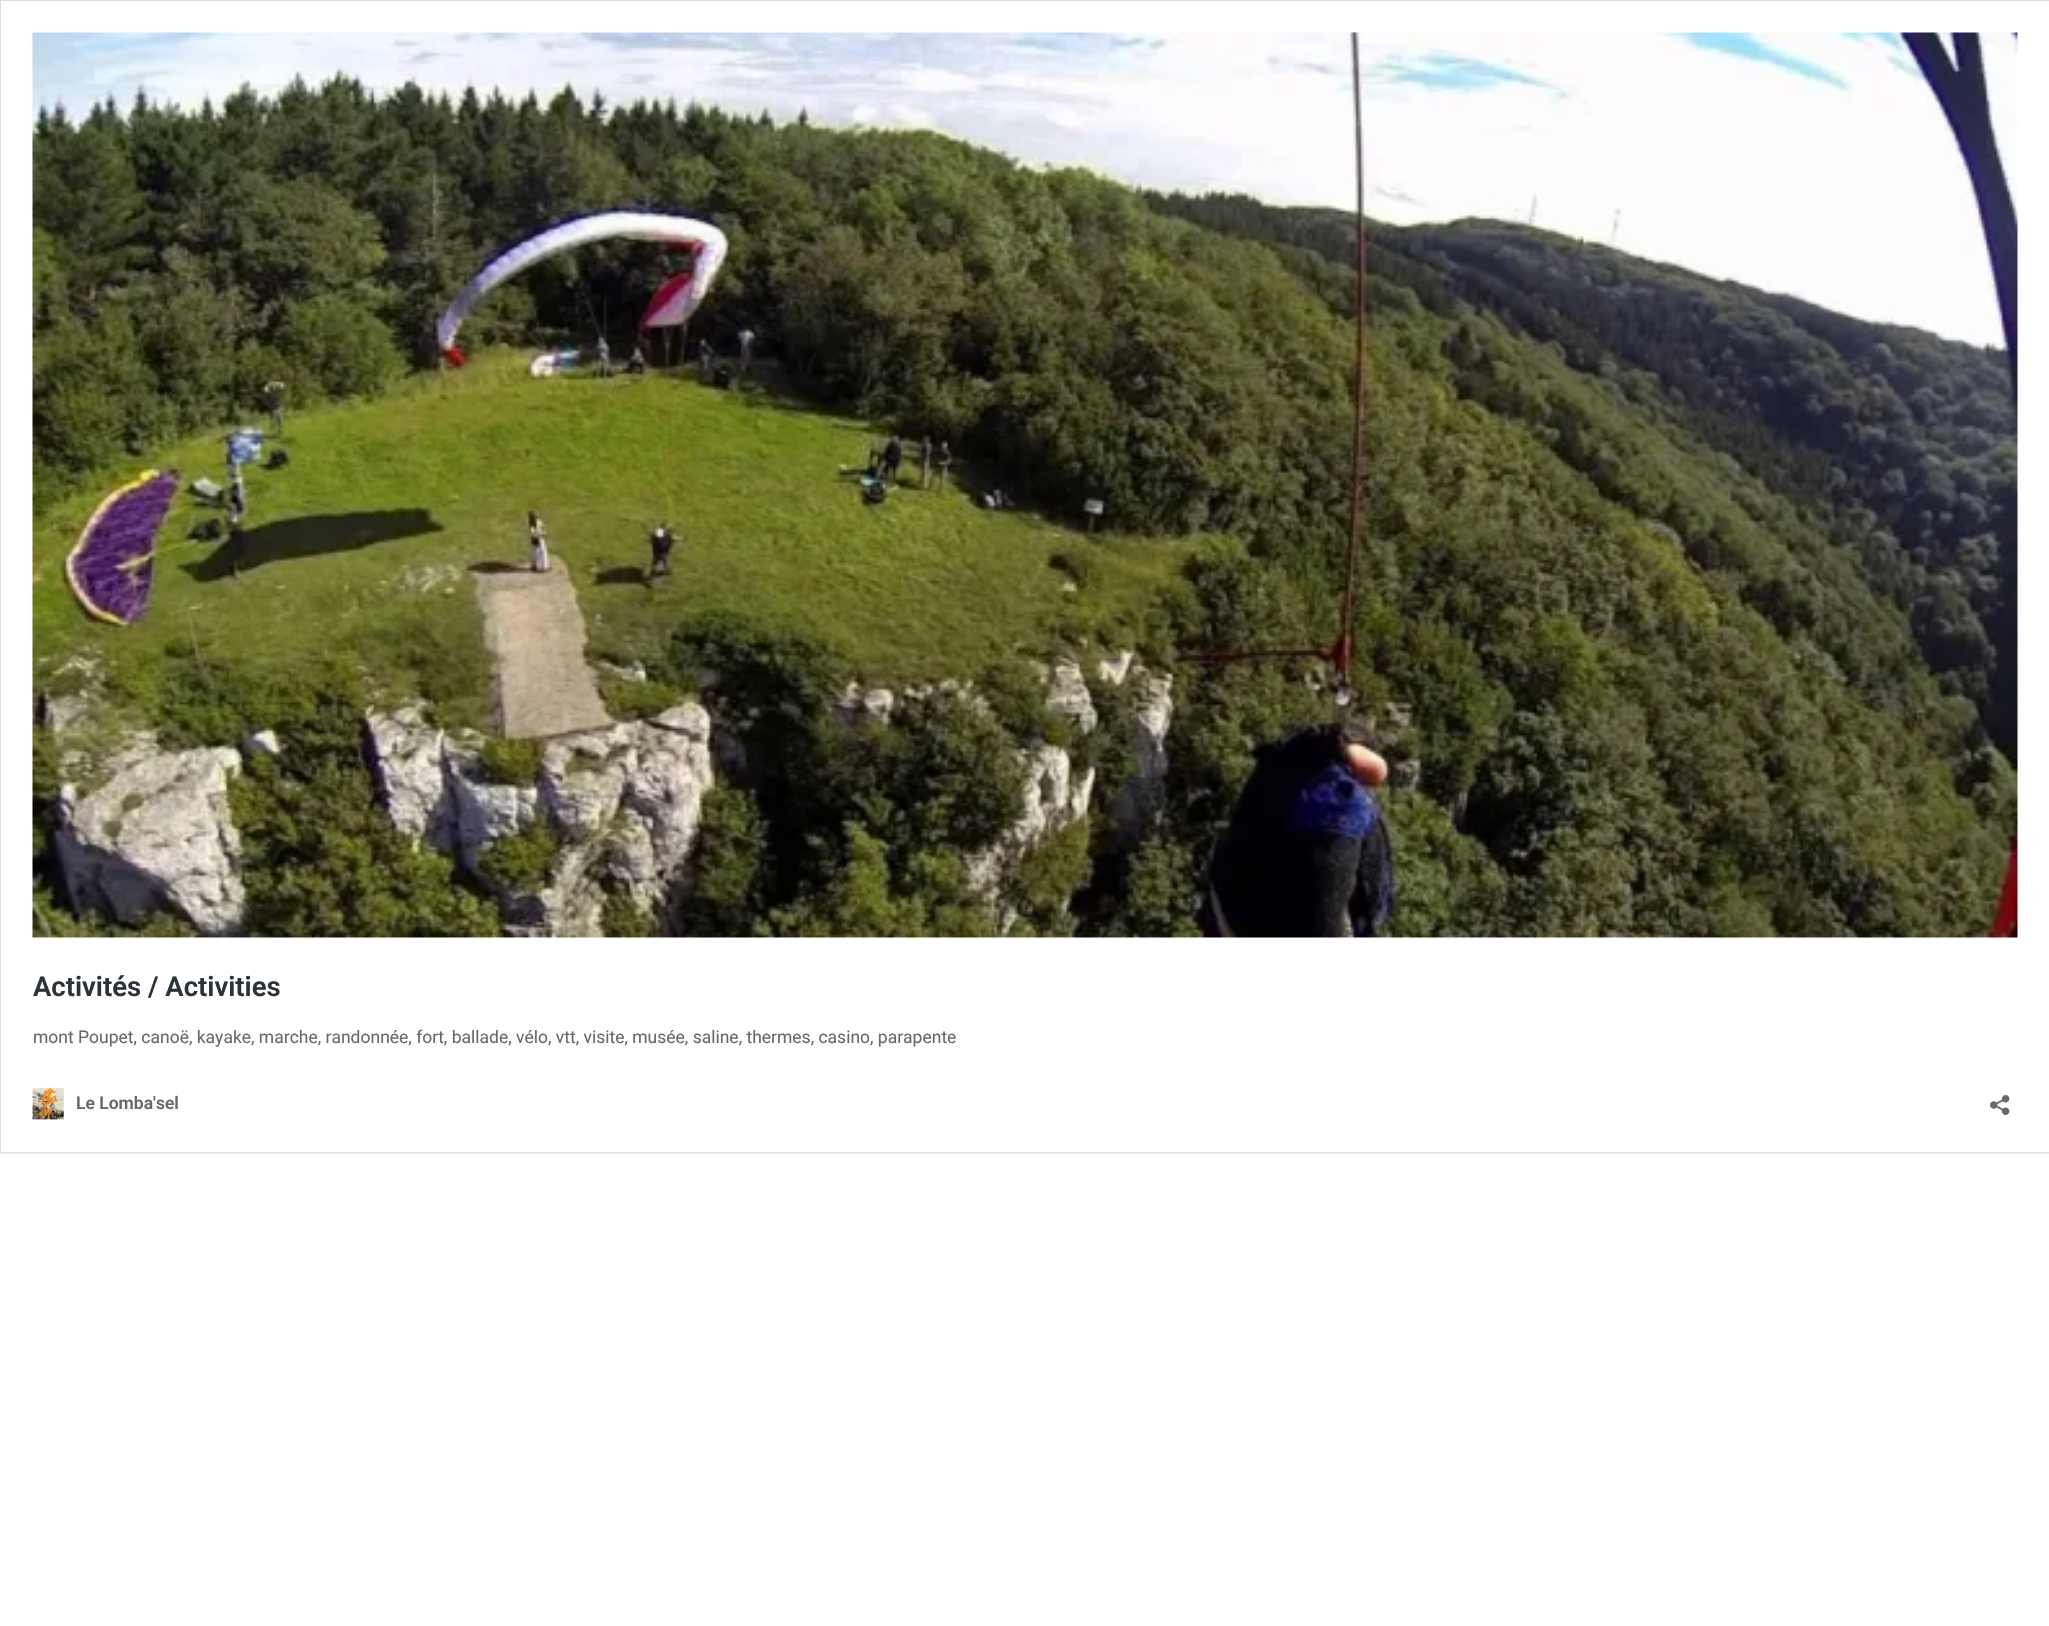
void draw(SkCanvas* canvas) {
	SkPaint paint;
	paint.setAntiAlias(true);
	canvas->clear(0xffffffff);
	paint.setColor(0x0d000000);
	paint.setMaskFilter(SkMaskFilter::MakeBlur(kNormal_SkBlurStyle, 0.5));
	canvas->drawRect(SkRect::MakeXYWH(0, 1, 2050, 1153), paint);
	paint.setMaskFilter(nullptr);
	paint.setColor(0xffffffff);
	canvas->drawRect(SkRect::MakeXYWH(0.5, 0.5, 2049, 1152), paint);
	paint.setStroke(true);
	paint.setStrokeWidth(1);
	paint.setColor(0xffdcdcde);
	canvas->drawRect(SkRect::MakeXYWH(0.5, 0.5, 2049, 1152), paint);
	canvas->drawImageRect(SkImages::DeferredFromEncodedData(SkData::MakeFromFileName("img1.png")), SkRect::MakeXYWH(32, 32, 1986, 906), SkSamplingOptions());
	SkFont f1(fontMgr->matchFamilyStyle("Roboto", SkFontStyle(600, SkFontStyle::kNormal_Width, SkFontStyle::kUpright_Slant)), 27.5);
	f1.setSubpixel(true);
	paint.setStroke(false);
	paint.setColor(0xff2c3338);
	canvas->drawString("Activités / Activities", 33, 996, f1, paint);
	SkFont f2(fontMgr->matchFamilyStyle("Roboto", SkFontStyle::Normal()), 17.5);
	f2.setSubpixel(true);
	paint.setColor(0xff646970);
	canvas->drawString("mont Poupet, canoë, kayake, marche, randonnée, fort, ballade, vélo, vtt, visite, musée, saline, thermes, casino, parapente", 33, 1043, f2, paint);
	canvas->drawImageRect(SkImages::DeferredFromEncodedData(SkData::MakeFromFileName("img2.png")), SkRect::MakeXYWH(32, 1088, 32, 32), SkSamplingOptions());
	SkFont f3(fontMgr->matchFamilyStyle("Roboto", SkFontStyle(600, SkFontStyle::kNormal_Width, SkFontStyle::kUpright_Slant)), 17.5);
	f3.setSubpixel(true);
	canvas->drawString("Le Lomba'sel", 76, 1109, f3, paint);
	canvas->drawImageRect(SkImages::DeferredFromEncodedData(SkData::MakeFromFileName("img3.png")), SkRect::MakeXYWH(1990, 1095, 20, 20), SkSamplingOptions());
}
